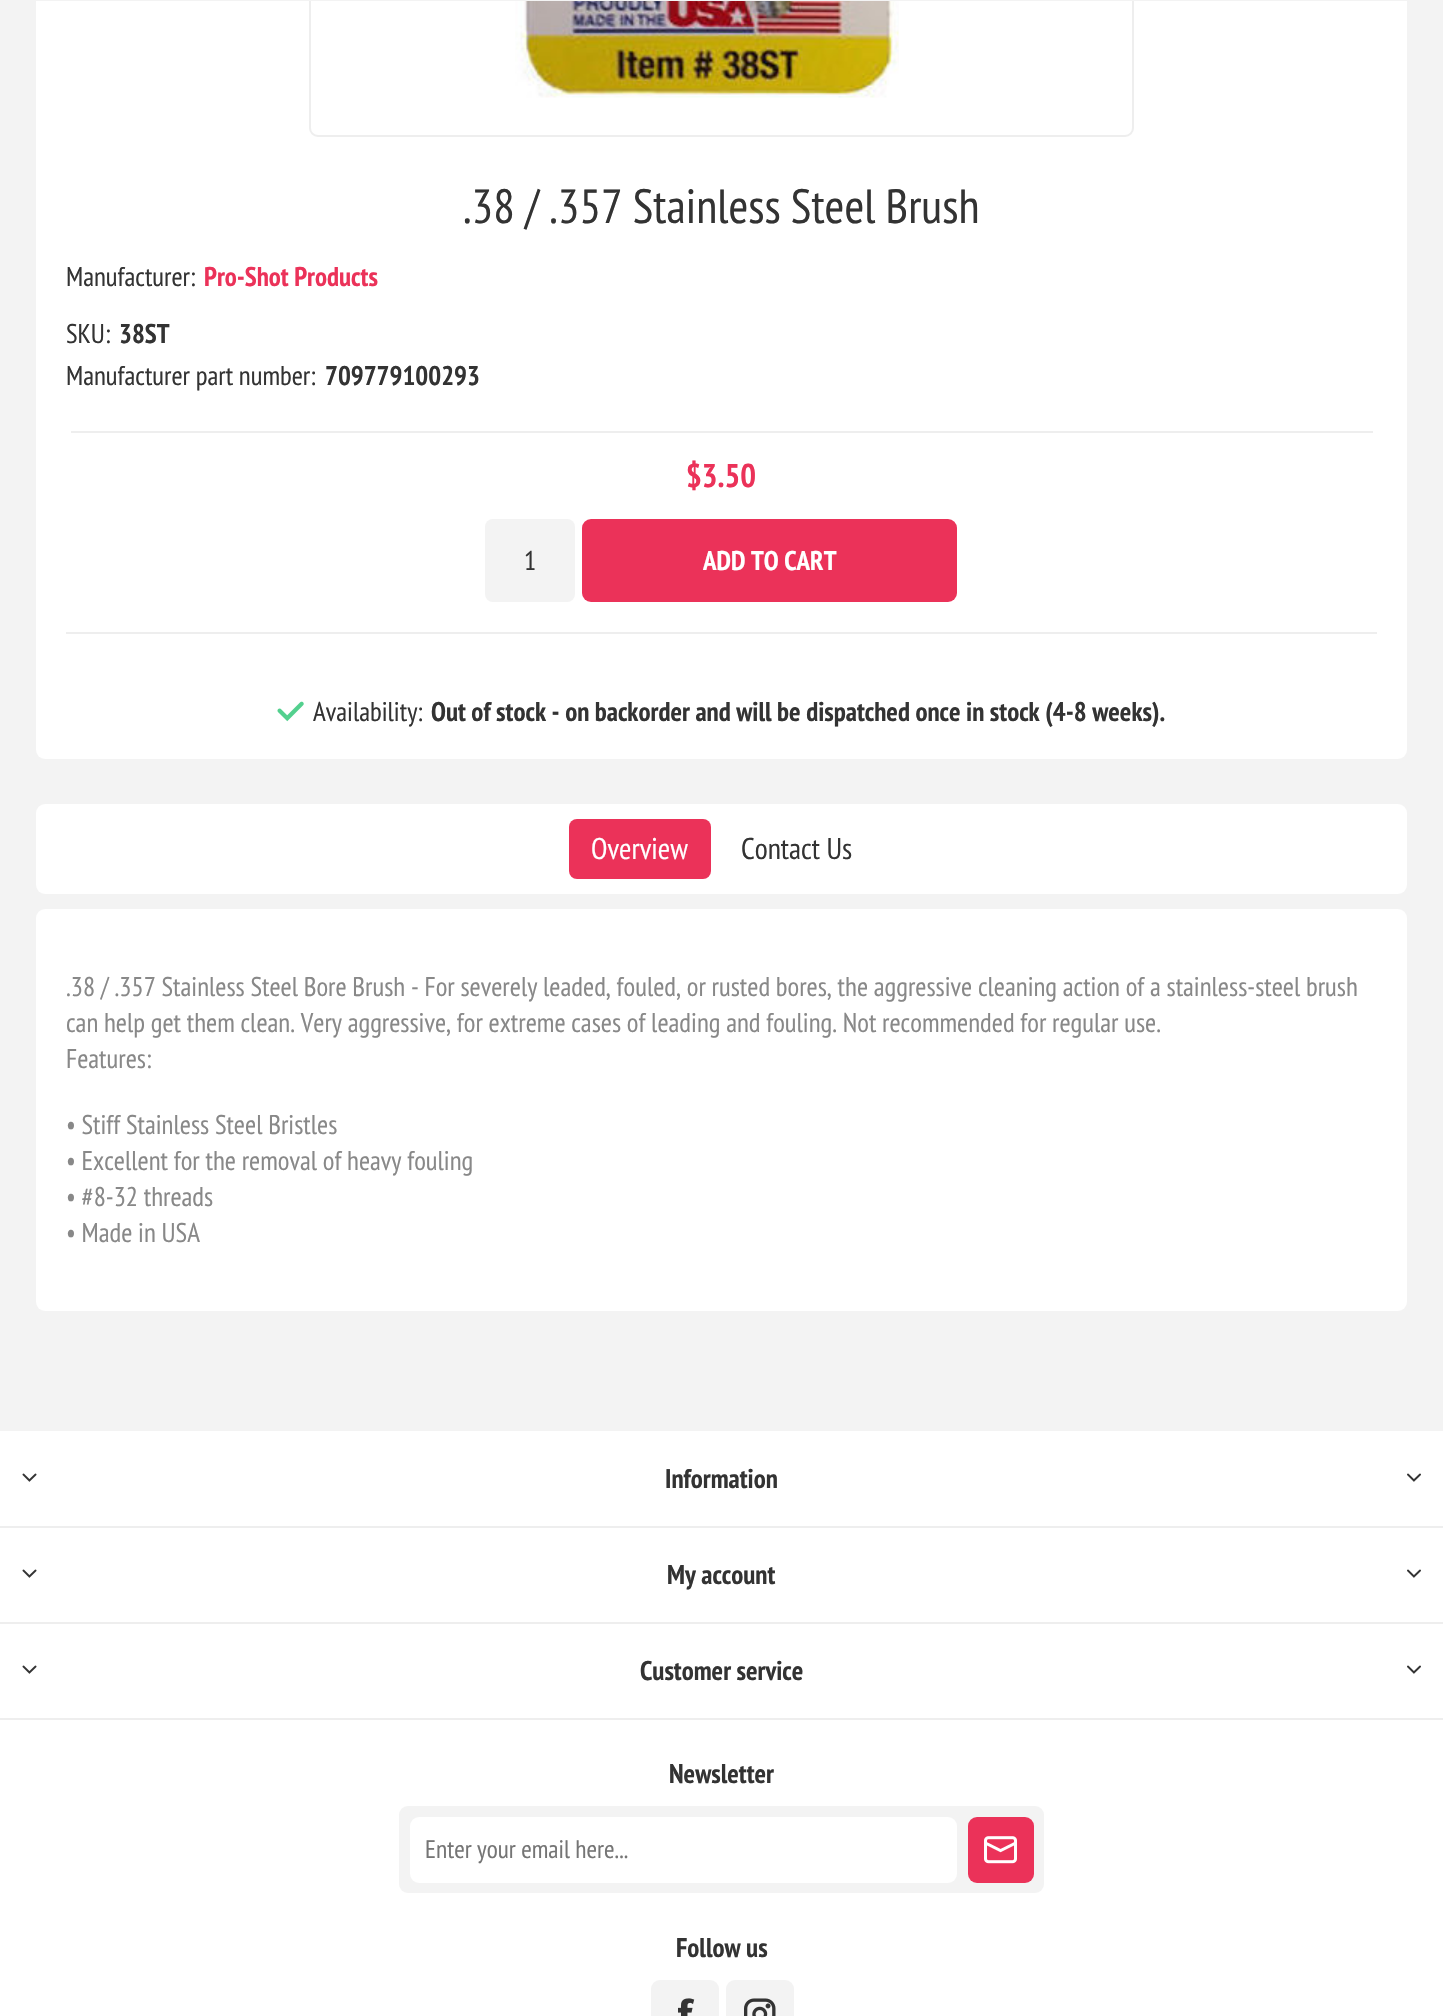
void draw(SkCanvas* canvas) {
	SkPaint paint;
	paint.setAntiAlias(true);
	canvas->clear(0xfff3f3f3);
	paint.setColor(0xffffffff);
	canvas->drawRoundRect(SkRect::MakeXYWH(36, -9, 1371, 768), 9, 9, paint);
	paint.setStroke(true);
	paint.setStrokeWidth(2);
	paint.setColor(0xffeeeeee);
	canvas->drawRoundRect(SkRect::MakeXYWH(310, -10, 823, 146), 8, 8, paint);
	paint.setStroke(false);
	paint.setColor(0xfff3f3f3);
	canvas->drawRect(SkRect::MakeXYWH(36, 0, 1371, 1), paint);
	canvas->drawImageRect(SkImages::DeferredFromEncodedData(SkData::MakeFromFileName("img1.png")), SkRect::MakeXYWH(515, 1, 384, 97), SkSamplingOptions());
	SkFont f1(fontMgr->matchFamilyStyle("PT Sans Narrow", SkFontStyle::Normal()), 48);
	f1.setSubpixel(true);
	paint.setColor(0xff333333);
	canvas->drawString(".38 / .357 Stainless Steel Brush", 463, 223, f1, paint);
	SkFont f2(fontMgr->matchFamilyStyle("PT Sans Narrow", SkFontStyle::Normal()), 27);
	f2.setSubpixel(true);
	canvas->drawString("Manufacturer:", 66, 286, f2, paint);
	SkFont f3(fontMgr->matchFamilyStyle("PT Sans Narrow", SkFontStyle::Bold()), 27);
	f3.setSubpixel(true);
	paint.setColor(0xffeb3259);
	canvas->drawString("Pro-Shot Products", 204, 286, f3, paint);
	paint.setColor(0xff333333);
	canvas->drawString("SKU:", 66, 343, f2, paint);
	canvas->drawString("38ST", 119, 343, f3, paint);
	canvas->drawString("Manufacturer part number:", 66, 385, f2, paint);
	canvas->drawString("709779100293", 325, 385, f3, paint);
	paint.setColor(0xffeeeeee);
	canvas->drawRect(SkRect::MakeXYWH(71, 431, 1302, 2), paint);
	SkFont f4(fontMgr->matchFamilyStyle("PT Sans Narrow", SkFontStyle::Bold()), 33);
	f4.setSubpixel(true);
	paint.setColor(0xffeb3259);
	canvas->drawString("$3.50", 686, 487, f4, paint);
	paint.setColor(0xffeeeeee);
	canvas->drawRect(SkRect::MakeXYWH(66, 632, 1311, 2), paint);
	paint.setColor(0xfff3f3f3);
	canvas->drawRoundRect(SkRect::MakeXYWH(485, 519, 90, 83), 8, 8, paint);
	paint.setColor(0xff333333);
	canvas->drawString("1", 524, 570, f2, paint);
	paint.setColor(0xffeb3259);
	canvas->drawRoundRect(SkRect::MakeXYWH(582, 519, 375, 83), 9, 9, paint);
	paint.setColor(0xffffffff);
	canvas->drawString("ADD TO CART", 703, 570, f3, paint);
	canvas->drawImageRect(SkImages::DeferredFromEncodedData(SkData::MakeFromFileName("img2.png")), SkRect::MakeXYWH(277, 701, 27, 21), SkSamplingOptions());
	paint.setColor(0xff333333);
	canvas->drawString("Availability:", 313, 721, f2, paint);
	canvas->drawString("Out of stock - on backorder and will be dispatched once in stock (4-8 weeks).", 431, 721, f3, paint);
	paint.setColor(0xffffffff);
	canvas->drawRoundRect(SkRect::MakeXYWH(36, 804, 1371, 90), 9, 9, paint);
	paint.setColor(0xffeb3259);
	canvas->drawRoundRect(SkRect::MakeXYWH(569, 819, 142, 60), 8, 8, paint);
	SkFont f5(fontMgr->matchFamilyStyle("PT Sans Narrow", SkFontStyle::Normal()), 30);
	f5.setSubpixel(true);
	paint.setColor(0xffffffff);
	canvas->drawString("Overview", 591, 859, f5, paint);
	paint.setColor(0xff333333);
	canvas->drawString("Contact Us", 741, 859, f5, paint);
	paint.setColor(0xffffffff);
	canvas->drawRoundRect(SkRect::MakeXYWH(36, 909, 1371, 402), 9, 9, paint);
	paint.setColor(0xff888888);
	canvas->drawString(".38 / .357 Stainless Steel Bore Brush - For severely leaded, fouled, or rusted bores, the aggressive cleaning action of a stainless-steel brush", 66, 996, f2, paint);
	canvas->drawString("can help get them clean. Very aggressive, for extreme cases of leading and fouling. Not recommended for regular use.", 66, 1032, f2, paint);
	canvas->drawString("Features:", 66, 1068, f2, paint);
	canvas->drawString("• Stiff Stainless Steel Bristles", 66, 1134, f2, paint);
	canvas->drawString("• Excellent for the removal of heavy fouling", 66, 1170, f2, paint);
	canvas->drawString("• #8-32 threads", 66, 1206, f2, paint);
	canvas->drawString("• Made in USA", 66, 1242, f2, paint);
	paint.setColor(0xffffffff);
	canvas->drawRect(SkRect::MakeXYWH(0, 1431, 1443, 585), paint);
	paint.setColor(0xffeeeeee);
	canvas->drawRect(SkRect::MakeXYWH(0, 1526, 1443, 2), paint);
	canvas->drawImageRect(SkImages::DeferredFromEncodedData(SkData::MakeFromFileName("img3.png")), SkRect::MakeXYWH(22, 1473, 15, 9), SkSamplingOptions());
	paint.setColor(0xff333333);
	canvas->drawString("Information", 665, 1488, f3, paint);
	canvas->drawImageRect(SkImages::DeferredFromEncodedData(SkData::MakeFromFileName("img4.png")), SkRect::MakeXYWH(1407, 1473, 14, 9), SkSamplingOptions());
	paint.setColor(0xffeeeeee);
	canvas->drawRect(SkRect::MakeXYWH(0, 1622, 1443, 2), paint);
	canvas->drawImageRect(SkImages::DeferredFromEncodedData(SkData::MakeFromFileName("img3.png")), SkRect::MakeXYWH(22, 1569, 15, 9), SkSamplingOptions());
	paint.setColor(0xff333333);
	canvas->drawString("My account", 667, 1584, f3, paint);
	canvas->drawImageRect(SkImages::DeferredFromEncodedData(SkData::MakeFromFileName("img4.png")), SkRect::MakeXYWH(1407, 1569, 14, 9), SkSamplingOptions());
	paint.setColor(0xffeeeeee);
	canvas->drawRect(SkRect::MakeXYWH(0, 1718, 1443, 2), paint);
	canvas->drawImageRect(SkImages::DeferredFromEncodedData(SkData::MakeFromFileName("img3.png")), SkRect::MakeXYWH(22, 1665, 15, 9), SkSamplingOptions());
	paint.setColor(0xff333333);
	canvas->drawString("Customer service", 640, 1680, f3, paint);
	canvas->drawImageRect(SkImages::DeferredFromEncodedData(SkData::MakeFromFileName("img4.png")), SkRect::MakeXYWH(1407, 1665, 14, 9), SkSamplingOptions());
	canvas->drawString("Newsletter", 669, 1783, f3, paint);
	paint.setColor(0xfff3f3f3);
	canvas->drawRoundRect(SkRect::MakeXYWH(399, 1806, 645, 87), 9, 9, paint);
	paint.setColor(0xffffffff);
	canvas->drawRoundRect(SkRect::MakeXYWH(410, 1817, 547, 66), 9, 9, paint);
	SkFont f6(fontMgr->matchFamilyStyle("PT Sans Narrow", SkFontStyle::Normal()), 25.5);
	f6.setSubpixel(true);
	paint.setColor(0xff757575);
	canvas->drawString("Enter your email here...", 425, 1858, f6, paint);
	paint.setColor(0xffeb3259);
	canvas->drawRoundRect(SkRect::MakeXYWH(968, 1817, 66, 66), 9, 9, paint);
	canvas->drawImageRect(SkImages::DeferredFromEncodedData(SkData::MakeFromFileName("img5.png")), SkRect::MakeXYWH(984, 1836, 33, 28), SkSamplingOptions());
	paint.setColor(0xff333333);
	canvas->drawString("Follow us", 676, 1957, f3, paint);
	paint.setColor(0xfff3f3f3);
	canvas->drawRoundRect(SkRect::MakeXYWH(651, 1980, 68, 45), 9, 9, paint);
	canvas->drawImageRect(SkImages::DeferredFromEncodedData(SkData::MakeFromFileName("img6.png")), SkRect::MakeXYWH(678, 1998, 17, 18), SkSamplingOptions());
	canvas->drawRoundRect(SkRect::MakeXYWH(726, 1980, 68, 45), 9, 9, paint);
	canvas->drawImageRect(SkImages::DeferredFromEncodedData(SkData::MakeFromFileName("img7.png")), SkRect::MakeXYWH(744, 1998, 32, 18), SkSamplingOptions());
}
